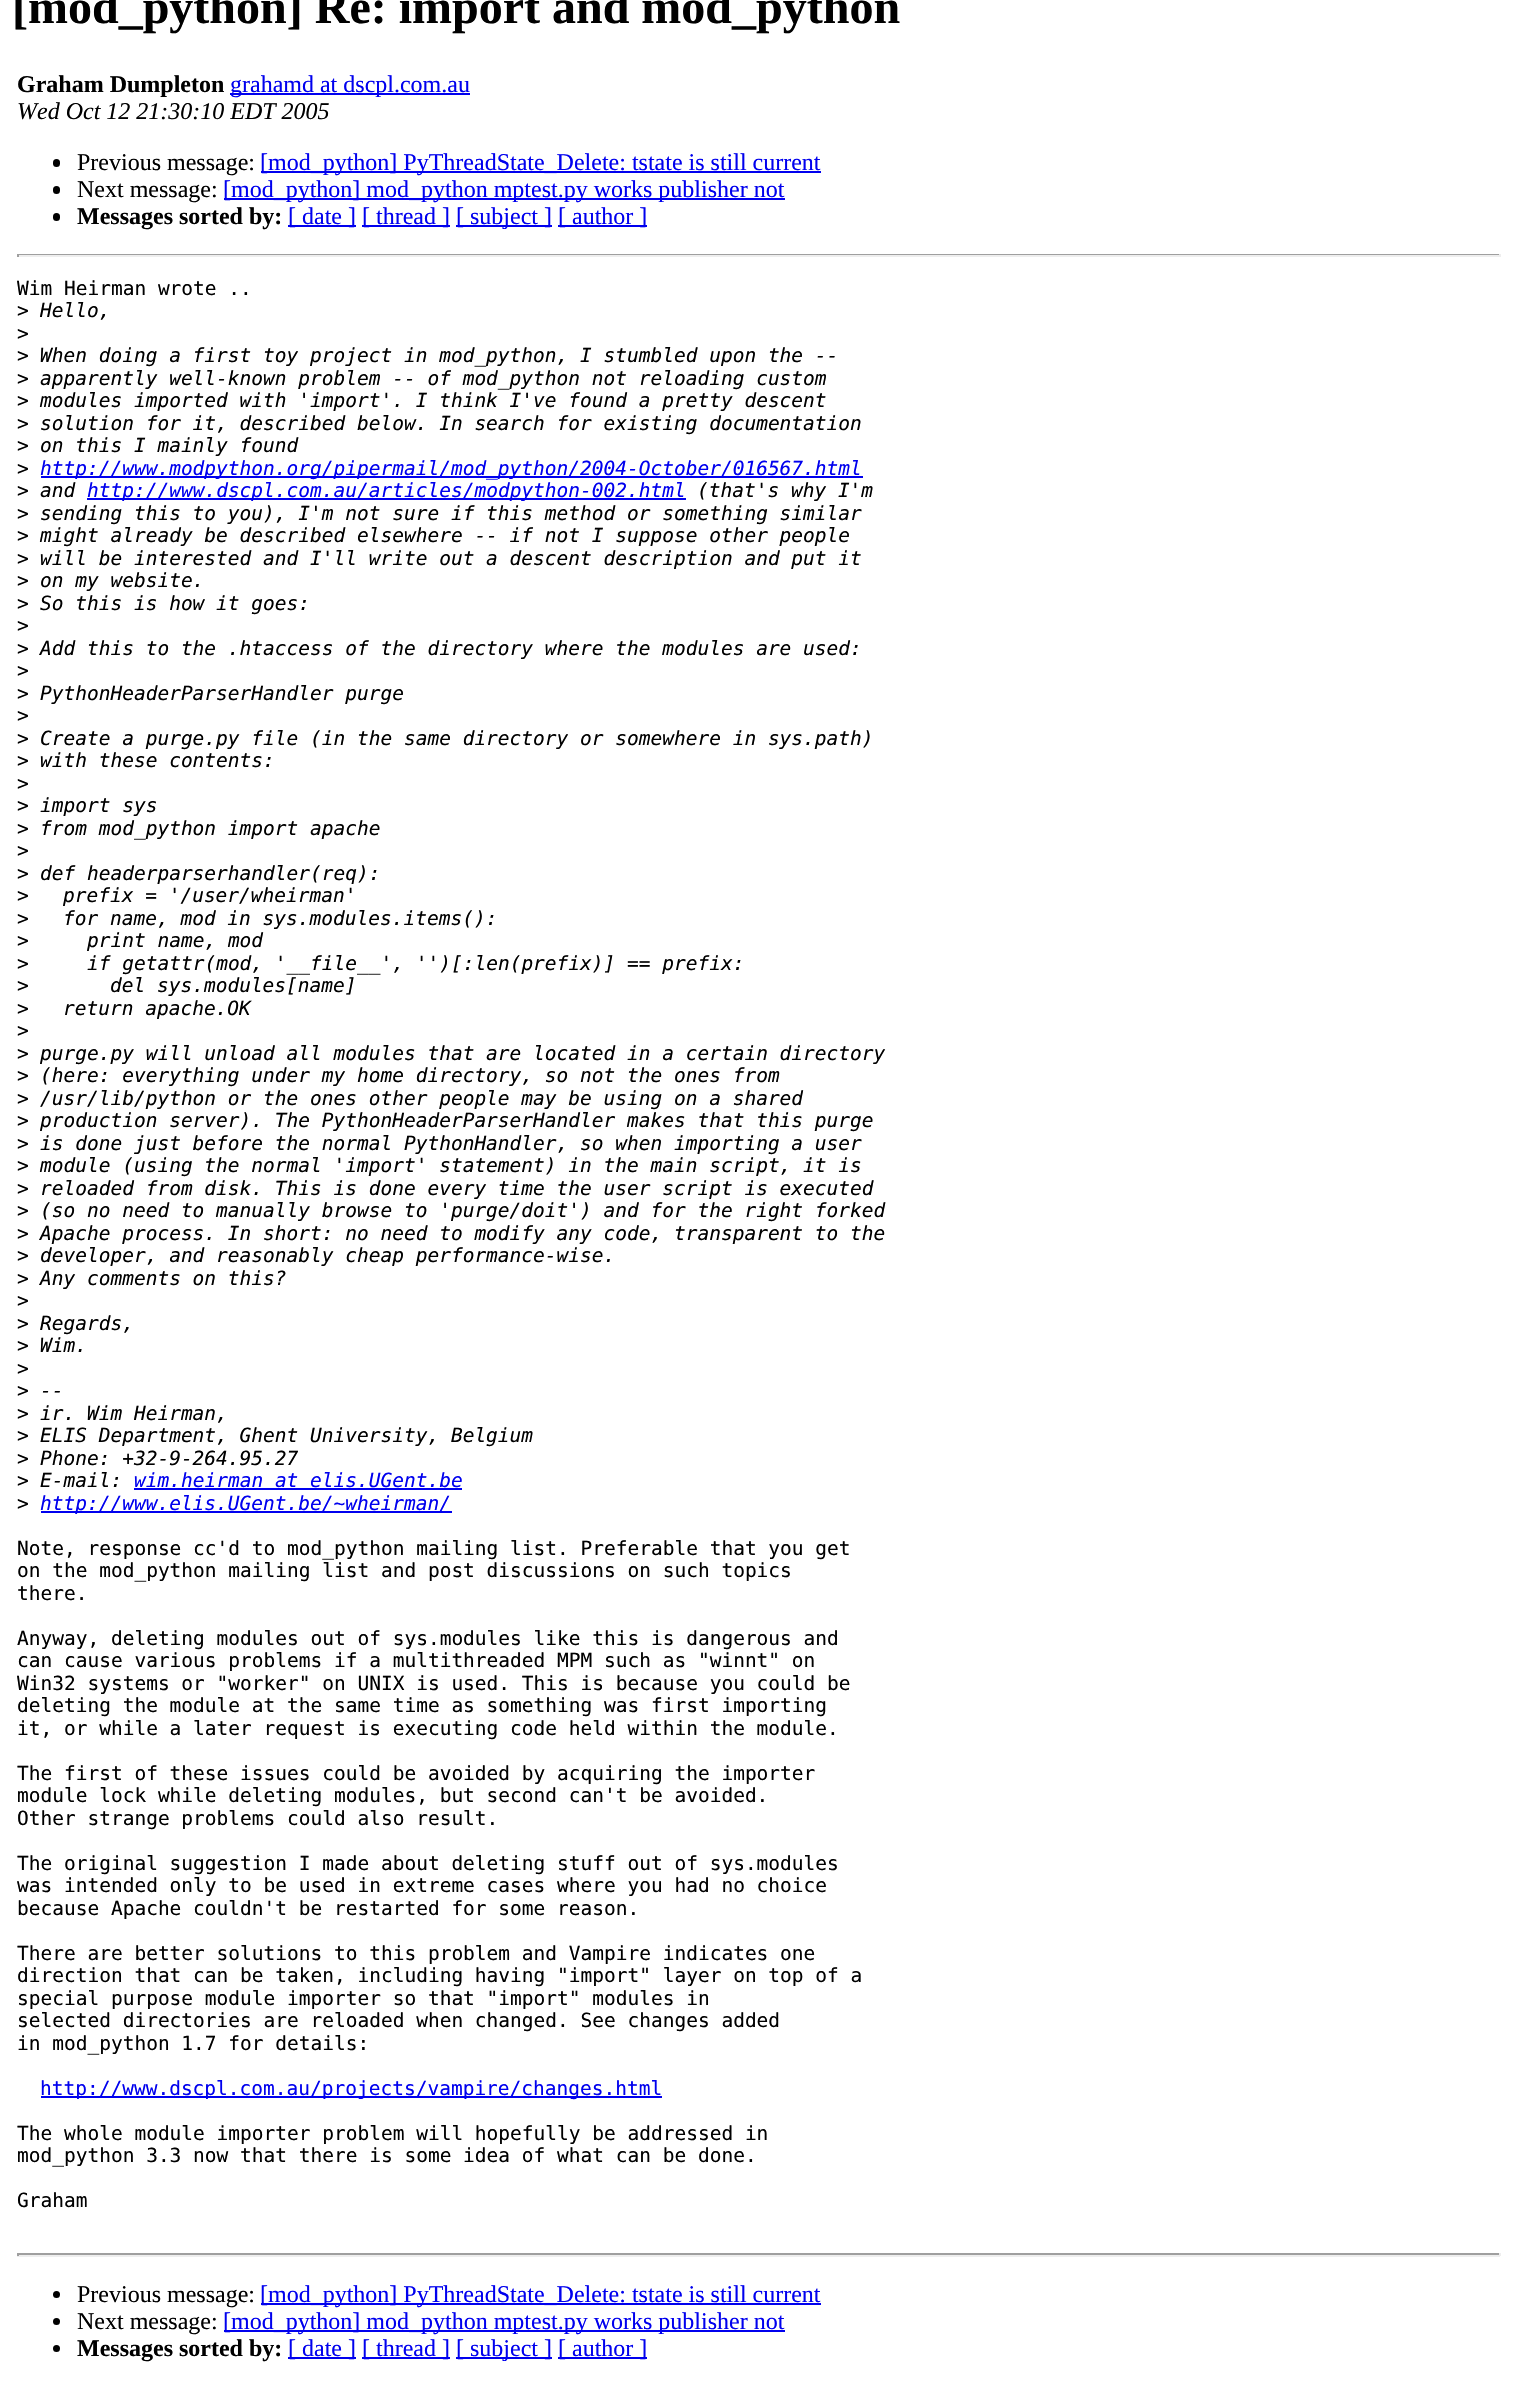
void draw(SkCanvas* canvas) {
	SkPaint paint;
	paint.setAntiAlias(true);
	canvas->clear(0xffffffff);
	SkFont f1(fontMgr->matchFamilyStyle("Liberation Serif", SkFontStyle::Bold()), 48);
	f1.setSubpixel(true);
	paint.setColor(0xff000000);
	canvas->drawString("[mod_python] Re: import and mod_python", 12, 23, f1, paint);
	SkFont f2(fontMgr->matchFamilyStyle("Liberation Serif", SkFontStyle::Bold()), 24);
	f2.setSubpixel(true);
	canvas->drawString("Graham Dumpleton", 17, 92, f2, paint);
	paint.setColor(0xff0000ee);
	canvas->drawRect(SkRect::MakeXYWH(230, 93, 240, 2), paint);
	SkFont f3(fontMgr->matchFamilyStyle("Liberation Serif", SkFontStyle::Normal()), 24);
	f3.setSubpixel(true);
	canvas->drawString("grahamd at dscpl.com.au", 230, 92, f3, paint);
	SkFont f4(fontMgr->matchFamilyStyle("Liberation Serif", SkFontStyle::Italic()), 24);
	f4.setSubpixel(true);
	paint.setColor(0xff000000);
	canvas->drawString("Wed Oct 12 21:30:10 EDT 2005", 17, 119, f4, paint);
	canvas->drawRoundRect(SkRect::MakeXYWH(53, 159, 7, 8), 3.5, 3.5, paint);
	canvas->drawString("Previous message:", 77, 170, f3, paint);
	paint.setColor(0xff0000ee);
	canvas->drawRect(SkRect::MakeXYWH(261, 171, 560, 2), paint);
	canvas->drawString("[mod_python] PyThreadState_Delete: tstate is still current", 260, 170, f3, paint);
	paint.setColor(0xff000000);
	canvas->drawRoundRect(SkRect::MakeXYWH(53, 186, 7, 8), 3.5, 3.5, paint);
	canvas->drawString("Next message:", 77, 197, f3, paint);
	paint.setColor(0xff0000ee);
	canvas->drawRect(SkRect::MakeXYWH(224, 198, 561, 2), paint);
	canvas->drawString("[mod_python] mod_python mptest.py works publisher not", 223, 197, f3, paint);
	paint.setColor(0xff000000);
	canvas->drawRoundRect(SkRect::MakeXYWH(53, 213, 7, 8), 3.5, 3.5, paint);
	canvas->drawString("Messages sorted by:", 77, 224, f2, paint);
	paint.setColor(0xff0000ee);
	canvas->drawRect(SkRect::MakeXYWH(288, 225, 68, 2), paint);
	canvas->drawString("[ date ]", 288, 224, f3, paint);
	canvas->drawRect(SkRect::MakeXYWH(362, 225, 88, 2), paint);
	canvas->drawString("[ thread ]", 362, 224, f3, paint);
	canvas->drawRect(SkRect::MakeXYWH(456, 225, 96, 2), paint);
	canvas->drawString("[ subject ]", 456, 224, f3, paint);
	canvas->drawRect(SkRect::MakeXYWH(558, 225, 89, 2), paint);
	canvas->drawString("[ author ]", 558, 224, f3, paint);
	paint.setColor(0xff9f9f9f);
	canvas->drawRect(SkRect::MakeXYWH(17, 254, 1483, 1), paint);
	paint.setColor(0xffeeeeee);
	canvas->drawRect(SkRect::MakeXYWH(1499, 254, 2, 3), paint);
	canvas->drawRect(SkRect::MakeXYWH(17, 255, 1483, 2), paint);
	paint.setColor(0xff9f9f9f);
	canvas->drawRect(SkRect::MakeXYWH(17, 254, 2, 3), paint);
	SkFont f5(fontMgr->matchFamilyStyle("DejaVu Sans Mono", SkFontStyle::Normal()), 19.5);
	f5.setSubpixel(true);
	paint.setColor(0xff000000);
	canvas->drawString("Wim Heirman wrote ..", 17, 295, f5, paint);
	canvas->drawString(">", 17, 317, f5, paint);
	SkFont f6(fontMgr->matchFamilyStyle("DejaVu Sans Mono", SkFontStyle::Italic()), 19.5);
	f6.setSubpixel(true);
	canvas->drawString("Hello,", 40, 317, f6, paint);
	canvas->drawString(">", 17, 340, f5, paint);
	canvas->drawString(">", 17, 362, f5, paint);
	canvas->drawString("When doing a first toy project in mod_python, I stumbled upon the --", 40, 362, f6, paint);
	canvas->drawString(">", 17, 385, f5, paint);
	canvas->drawString("apparently well-known problem -- of mod_python not reloading custom", 40, 385, f6, paint);
	canvas->drawString(">", 17, 407, f5, paint);
	canvas->drawString("modules imported with 'import'. I think I've found a pretty descent", 40, 407, f6, paint);
	canvas->drawString(">", 17, 430, f5, paint);
	canvas->drawString("solution for it, described below. In search for existing documentation", 40, 430, f6, paint);
	canvas->drawString(">", 17, 452, f5, paint);
	canvas->drawString("on this I mainly found", 40, 452, f6, paint);
	canvas->drawString(">", 17, 475, f5, paint);
	paint.setColor(0xff0000ee);
	canvas->drawRect(SkRect::MakeXYWH(41, 476, 822, 2), paint);
	canvas->drawString("http://www.modpython.org/pipermail/mod_python/2004-October/016567.html", 40, 475, f6, paint);
	paint.setColor(0xff000000);
	canvas->drawString(">", 17, 497, f5, paint);
	canvas->drawString("and", 40, 497, f6, paint);
	paint.setColor(0xff0000ee);
	canvas->drawRect(SkRect::MakeXYWH(87, 498, 599, 2), paint);
	canvas->drawString("http://www.dscpl.com.au/articles/modpython-002.html", 87, 497, f6, paint);
	paint.setColor(0xff000000);
	canvas->drawString("(that's why I'm", 697, 497, f6, paint);
	canvas->drawString(">", 17, 520, f5, paint);
	canvas->drawString("sending this to you), I'm not sure if this method or something similar", 40, 520, f6, paint);
	canvas->drawString(">", 17, 542, f5, paint);
	canvas->drawString("might already be described elsewhere -- if not I suppose other people", 40, 542, f6, paint);
	canvas->drawString(">", 17, 565, f5, paint);
	canvas->drawString("will be interested and I'll write out a descent description and put it", 40, 565, f6, paint);
	canvas->drawString(">", 17, 587, f5, paint);
	canvas->drawString("on my website.", 40, 587, f6, paint);
	canvas->drawString(">", 17, 610, f5, paint);
	canvas->drawString("So this is how it goes:", 40, 610, f6, paint);
	canvas->drawString(">", 17, 632, f5, paint);
	canvas->drawString(">", 17, 655, f5, paint);
	canvas->drawString("Add this to the .htaccess of the directory where the modules are used:", 40, 655, f6, paint);
	canvas->drawString(">", 17, 677, f5, paint);
	canvas->drawString(">", 17, 700, f5, paint);
	canvas->drawString("PythonHeaderParserHandler purge", 40, 700, f6, paint);
	canvas->drawString(">", 17, 722, f5, paint);
	canvas->drawString(">", 17, 745, f5, paint);
	canvas->drawString("Create a purge.py file (in the same directory or somewhere in sys.path)", 40, 745, f6, paint);
	canvas->drawString(">", 17, 767, f5, paint);
	canvas->drawString("with these contents:", 40, 767, f6, paint);
	canvas->drawString(">", 17, 790, f5, paint);
	canvas->drawString(">", 17, 812, f5, paint);
	canvas->drawString("import sys", 40, 812, f6, paint);
	canvas->drawString(">", 17, 835, f5, paint);
	canvas->drawString("from mod_python import apache", 40, 835, f6, paint);
	canvas->drawString(">", 17, 857, f5, paint);
	canvas->drawString(">", 17, 880, f5, paint);
	canvas->drawString("def headerparserhandler(req):", 40, 880, f6, paint);
	canvas->drawString(">", 17, 902, f5, paint);
	canvas->drawString("prefix = '/user/wheirman'", 63, 902, f6, paint);
	canvas->drawString(">", 17, 925, f5, paint);
	canvas->drawString("for name, mod in sys.modules.items():", 63, 925, f6, paint);
	canvas->drawString(">", 17, 947, f5, paint);
	canvas->drawString("print name, mod", 87, 947, f6, paint);
	canvas->drawString(">", 17, 970, f5, paint);
	canvas->drawString("if getattr(mod, '__file__', '')[:len(prefix)] == prefix:", 87, 970, f6, paint);
	canvas->drawString(">", 17, 992, f5, paint);
	canvas->drawString("del sys.modules[name]", 110, 992, f6, paint);
	canvas->drawString(">", 17, 1015, f5, paint);
	canvas->drawString("return apache.OK", 63, 1015, f6, paint);
	canvas->drawString(">", 17, 1037, f5, paint);
	canvas->drawString(">", 17, 1060, f5, paint);
	canvas->drawString("purge.py will unload all modules that are located in a certain directory", 40, 1060, f6, paint);
	canvas->drawString(">", 17, 1082, f5, paint);
	canvas->drawString("(here: everything under my home directory, so not the ones from", 40, 1082, f6, paint);
	canvas->drawString(">", 17, 1105, f5, paint);
	canvas->drawString("/usr/lib/python or the ones other people may be using on a shared", 40, 1105, f6, paint);
	canvas->drawString(">", 17, 1127, f5, paint);
	canvas->drawString("production server). The PythonHeaderParserHandler makes that this purge", 40, 1127, f6, paint);
	canvas->drawString(">", 17, 1150, f5, paint);
	canvas->drawString("is done just before the normal PythonHandler, so when importing a user", 40, 1150, f6, paint);
	canvas->drawString(">", 17, 1172, f5, paint);
	canvas->drawString("module (using the normal 'import' statement) in the main script, it is", 40, 1172, f6, paint);
	canvas->drawString(">", 17, 1195, f5, paint);
	canvas->drawString("reloaded from disk. This is done every time the user script is executed", 40, 1195, f6, paint);
	canvas->drawString(">", 17, 1217, f5, paint);
	canvas->drawString("(so no need to manually browse to 'purge/doit') and for the right forked", 40, 1217, f6, paint);
	canvas->drawString(">", 17, 1240, f5, paint);
	canvas->drawString("Apache process. In short: no need to modify any code, transparent to the", 40, 1240, f6, paint);
	canvas->drawString(">", 17, 1262, f5, paint);
	canvas->drawString("developer, and reasonably cheap performance-wise.", 40, 1262, f6, paint);
	canvas->drawString(">", 17, 1285, f5, paint);
	canvas->drawString("Any comments on this?", 40, 1285, f6, paint);
	canvas->drawString(">", 17, 1307, f5, paint);
	canvas->drawString(">", 17, 1330, f5, paint);
	canvas->drawString("Regards,", 40, 1330, f6, paint);
	canvas->drawString(">", 17, 1352, f5, paint);
	canvas->drawString("Wim.", 40, 1352, f6, paint);
	canvas->drawString(">", 17, 1375, f5, paint);
	canvas->drawString(">", 17, 1397, f5, paint);
	canvas->drawString("--", 40, 1397, f6, paint);
	canvas->drawString(">", 17, 1420, f5, paint);
	canvas->drawString("ir. Wim Heirman,", 40, 1420, f6, paint);
	canvas->drawString(">", 17, 1442, f5, paint);
	canvas->drawString("ELIS Department, Ghent University, Belgium", 40, 1442, f6, paint);
	canvas->drawString(">", 17, 1465, f5, paint);
	canvas->drawString("Phone: +32-9-264.95.27", 40, 1465, f6, paint);
	canvas->drawString(">", 17, 1487, f5, paint);
	canvas->drawString("E-mail:", 40, 1487, f6, paint);
	paint.setColor(0xff0000ee);
	canvas->drawString("wim.heirman at elis.UGent.be", 134, 1487, f6, paint);
	canvas->drawRect(SkRect::MakeXYWH(134, 1488, 328, 2), paint);
	paint.setColor(0xff000000);
	canvas->drawString(">", 17, 1510, f5, paint);
	paint.setColor(0xff0000ee);
	canvas->drawRect(SkRect::MakeXYWH(41, 1511, 411, 2), paint);
	canvas->drawString("http://www.elis.UGent.be/~wheirman/", 40, 1510, f6, paint);
	paint.setColor(0xff000000);
	canvas->drawString("Note, response cc'd to mod_python mailing list. Preferable that you get", 17, 1555, f5, paint);
	canvas->drawString("on the mod_python mailing list and post discussions on such topics", 17, 1577, f5, paint);
	canvas->drawString("there.", 17, 1600, f5, paint);
	canvas->drawString("Anyway, deleting modules out of sys.modules like this is dangerous and", 17, 1645, f5, paint);
	canvas->drawString("can cause various problems if a multithreaded MPM such as \"winnt\" on", 17, 1667, f5, paint);
	canvas->drawString("Win32 systems or \"worker\" on UNIX is used. This is because you could be", 17, 1690, f5, paint);
	canvas->drawString("deleting the module at the same time as something was first importing", 17, 1712, f5, paint);
	canvas->drawString("it, or while a later request is executing code held within the module.", 17, 1735, f5, paint);
	canvas->drawString("The first of these issues could be avoided by acquiring the importer", 17, 1780, f5, paint);
	canvas->drawString("module lock while deleting modules, but second can't be avoided.", 17, 1802, f5, paint);
	canvas->drawString("Other strange problems could also result.", 17, 1825, f5, paint);
	canvas->drawString("The original suggestion I made about deleting stuff out of sys.modules", 17, 1870, f5, paint);
	canvas->drawString("was intended only to be used in extreme cases where you had no choice", 17, 1892, f5, paint);
	canvas->drawString("because Apache couldn't be restarted for some reason.", 17, 1915, f5, paint);
	canvas->drawString("There are better solutions to this problem and Vampire indicates one", 17, 1960, f5, paint);
	canvas->drawString("direction that can be taken, including having \"import\" layer on top of a", 17, 1982, f5, paint);
	canvas->drawString("special purpose module importer so that \"import\" modules in", 17, 2005, f5, paint);
	canvas->drawString("selected directories are reloaded when changed. See changes added", 17, 2027, f5, paint);
	canvas->drawString("in mod_python 1.7 for details:", 17, 2050, f5, paint);
	paint.setColor(0xff0000ee);
	canvas->drawRect(SkRect::MakeXYWH(41, 2096, 621, 2), paint);
	canvas->drawString("http://www.dscpl.com.au/projects/vampire/changes.html", 40, 2095, f5, paint);
	paint.setColor(0xff000000);
	canvas->drawString("The whole module importer problem will hopefully be addressed in", 17, 2140, f5, paint);
	canvas->drawString("mod_python 3.3 now that there is some idea of what can be done.", 17, 2162, f5, paint);
	canvas->drawString("Graham", 17, 2207, f5, paint);
	paint.setColor(0xff9f9f9f);
	canvas->drawRect(SkRect::MakeXYWH(17, 2253, 1483, 2), paint);
	paint.setColor(0xffeeeeee);
	canvas->drawRect(SkRect::MakeXYWH(1499, 2253, 2, 3), paint);
	canvas->drawRect(SkRect::MakeXYWH(17, 2255, 1483, 2), paint);
	paint.setColor(0xff9f9f9f);
	canvas->drawRect(SkRect::MakeXYWH(17, 2253, 2, 3), paint);
	paint.setColor(0xff000000);
	canvas->drawCircle(56.5, 2294.5, 3.5, paint);
	canvas->drawString("Previous message:", 77, 2302, f3, paint);
	paint.setColor(0xff0000ee);
	canvas->drawRect(SkRect::MakeXYWH(261, 2303, 560, 2), paint);
	canvas->drawString("[mod_python] PyThreadState_Delete: tstate is still current", 260, 2302, f3, paint);
	paint.setColor(0xff000000);
	canvas->drawCircle(56.5, 2321.5, 3.5, paint);
	canvas->drawString("Next message:", 77, 2329, f3, paint);
	paint.setColor(0xff0000ee);
	canvas->drawRect(SkRect::MakeXYWH(224, 2330, 561, 2), paint);
	canvas->drawString("[mod_python] mod_python mptest.py works publisher not", 223, 2329, f3, paint);
	paint.setColor(0xff000000);
	canvas->drawCircle(56.5, 2348.5, 3.5, paint);
	canvas->drawString("Messages sorted by:", 77, 2356, f2, paint);
	paint.setColor(0xff0000ee);
	canvas->drawRect(SkRect::MakeXYWH(288, 2357, 68, 2), paint);
	canvas->drawString("[ date ]", 288, 2356, f3, paint);
	canvas->drawRect(SkRect::MakeXYWH(362, 2357, 88, 2), paint);
	canvas->drawString("[ thread ]", 362, 2356, f3, paint);
	canvas->drawRect(SkRect::MakeXYWH(456, 2357, 96, 2), paint);
	canvas->drawString("[ subject ]", 456, 2356, f3, paint);
	canvas->drawRect(SkRect::MakeXYWH(558, 2357, 89, 2), paint);
	canvas->drawString("[ author ]", 558, 2356, f3, paint);
}
